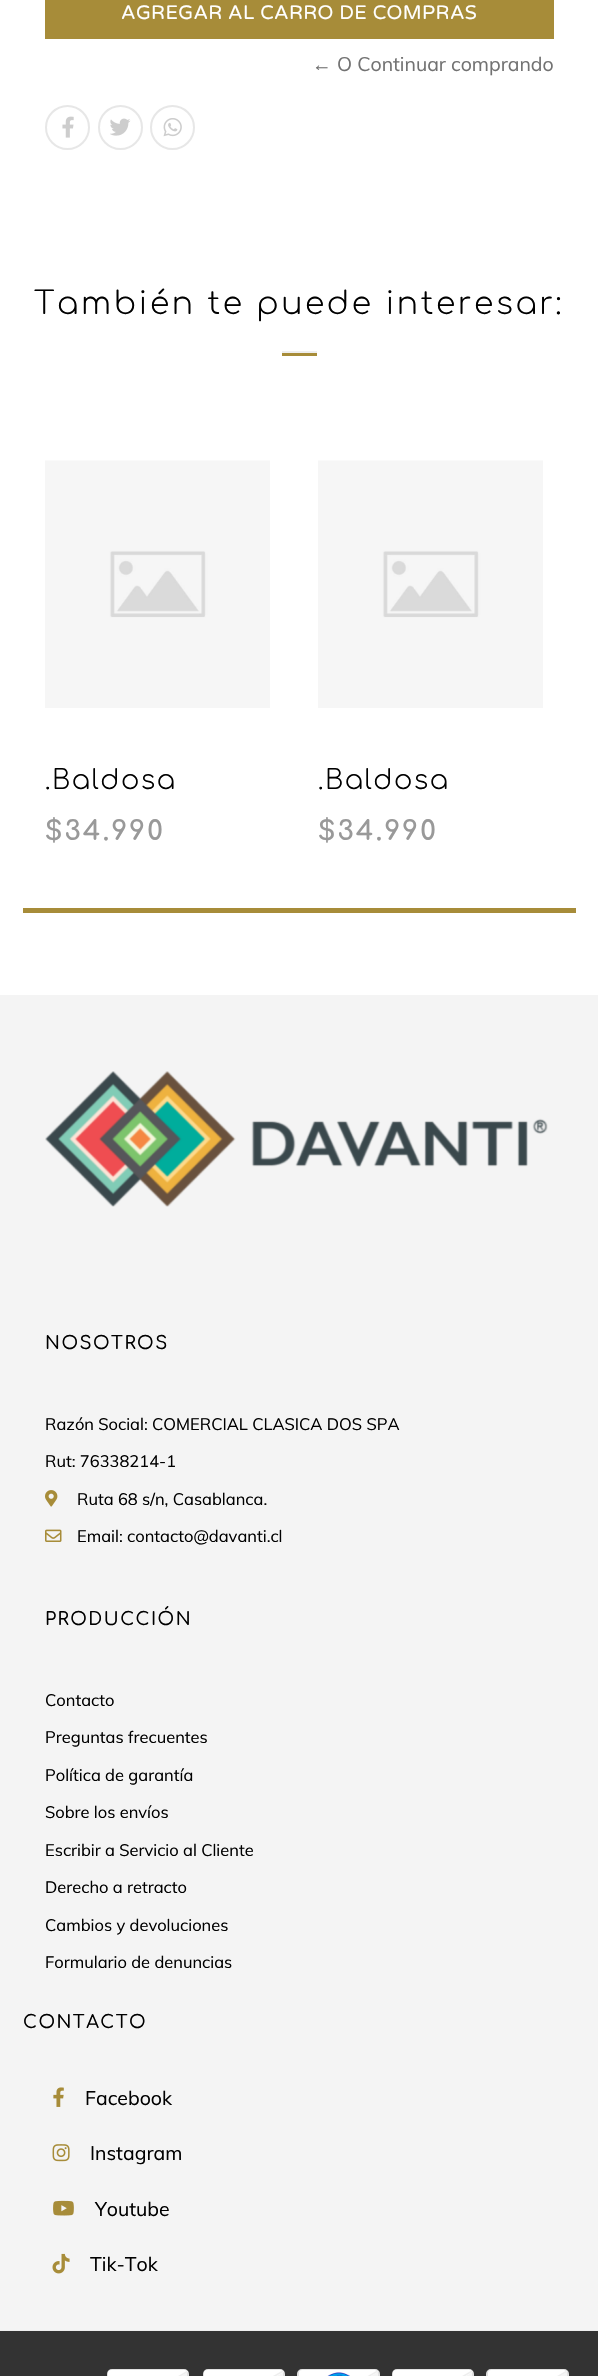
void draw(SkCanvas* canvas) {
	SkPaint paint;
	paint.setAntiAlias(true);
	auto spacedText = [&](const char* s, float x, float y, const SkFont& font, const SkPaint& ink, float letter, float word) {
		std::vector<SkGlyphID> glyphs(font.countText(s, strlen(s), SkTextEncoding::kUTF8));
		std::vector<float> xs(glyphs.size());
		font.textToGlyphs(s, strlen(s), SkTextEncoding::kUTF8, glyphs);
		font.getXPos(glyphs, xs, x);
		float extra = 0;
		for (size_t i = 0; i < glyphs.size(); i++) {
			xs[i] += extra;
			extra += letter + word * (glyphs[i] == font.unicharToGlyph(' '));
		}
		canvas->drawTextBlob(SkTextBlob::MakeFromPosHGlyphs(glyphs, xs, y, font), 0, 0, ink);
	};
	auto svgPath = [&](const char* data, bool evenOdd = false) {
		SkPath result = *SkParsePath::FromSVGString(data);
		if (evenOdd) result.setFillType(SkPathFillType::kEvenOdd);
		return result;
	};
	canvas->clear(0xffffffff);
	paint.setColor(0xffa78c39);
	canvas->drawRect(SkRect::MakeXYWH(45, 0, 509, 39), paint);
	SkFont f1(fontMgr->matchFamilyStyle("Varela Round", SkFontStyle::Normal()), 19.5);
	f1.setSubpixel(true);
	paint.setColor(0xffffffff);
	spacedText("AGREGAR AL CARRO DE COMPRAS", 121, 19, f1, paint, 0.4, 0);
	SkFont f2(fontMgr->matchFamilyStyle("Liberation Serif", SkFontStyle::Normal()), 19.5);
	f2.setSubpixel(true);
	paint.setColor(0xff727272);
	canvas->drawString("←", 312, 71, f2, paint);
	SkFont f3(fontMgr->matchFamilyStyle("Muli", SkFontStyle::Normal()), 19.5);
	f3.setSubpixel(true);
	canvas->drawString("O Continuar comprando", 337, 71, f3, paint);
	paint.setStroke(true);
	paint.setStrokeWidth(2);
	paint.setColor(0xffe7e7e7);
	canvas->drawCircle(67.5, 127.5, 21.5, paint);
	canvas->drawImageRect(SkImages::DeferredFromEncodedData(SkData::MakeFromFileName("img1.png")), SkRect::MakeXYWH(62, 116, 12, 22), SkSamplingOptions());
	canvas->drawCircle(120.5, 127.5, 21.5, paint);
	canvas->drawImageRect(SkImages::DeferredFromEncodedData(SkData::MakeFromFileName("img2.png")), SkRect::MakeXYWH(110, 118, 21, 18), SkSamplingOptions());
	canvas->drawCircle(172.5, 127.5, 21.5, paint);
	canvas->drawImageRect(SkImages::DeferredFromEncodedData(SkData::MakeFromFileName("img3.png")), SkRect::MakeXYWH(163, 118, 19, 19), SkSamplingOptions());
	SkFont f4(fontMgr->matchFamilyStyle("Comfortaa", SkFontStyle(300, SkFontStyle::kNormal_Width, SkFontStyle::kUpright_Slant)), 31.5);
	f4.setSubpixel(true);
	paint.setStroke(false);
	paint.setColor(0xff000000);
	spacedText("También te puede interesar:", 34, 314, f4, paint, 2.6, 0);
	paint.setColor(0xffa78c39);
	canvas->drawRect(SkRect::MakeXYWH(282, 353, 35, 3), paint);
	paint.setColor(0xffeeeeee);
	canvas->drawRect(SkRect::MakeXYWH(282, 351, 35, 2), paint);
	paint.setColor(0xffa78c39);
	canvas->drawRect(SkRect::MakeXYWH(23, 908, 553, 5), paint);
	canvas->drawImageRect(SkImages::DeferredFromEncodedData(SkData::MakeFromFileName("img4.png")), SkRect::MakeXYWH(45, 460, 225, 248), SkSamplingOptions());
	SkFont f5(fontMgr->matchFamilyStyle("Comfortaa", SkFontStyle(300, SkFontStyle::kNormal_Width, SkFontStyle::kUpright_Slant)), 27);
	f5.setSubpixel(true);
	paint.setColor(0xff000000);
	spacedText(".Baldosa", 45, 789, f5, paint, 1.5, 0);
	SkFont f6(fontMgr->matchFamilyStyle("Comfortaa", SkFontStyle::Bold()), 27);
	f6.setSubpixel(true);
	paint.setColor(0xff999999);
	spacedText("$34.990", 45, 840, f6, paint, 2.25, 0);
	canvas->drawImageRect(SkImages::DeferredFromEncodedData(SkData::MakeFromFileName("img5.png")), SkRect::MakeXYWH(318, 460, 225, 248), SkSamplingOptions());
	paint.setColor(0xff000000);
	spacedText(".Baldosa", 318, 789, f5, paint, 1.5, 0);
	paint.setColor(0xff999999);
	spacedText("$34.990", 318, 840, f6, paint, 2.25, 0);
	paint.setColor(0xfff4f4f4);
	canvas->drawRect(SkRect::MakeXYWH(0, 995, 598, 1335), paint);
	paint.setColor(0xffeeeeee);
	canvas->drawRect(SkRect::MakeXYWH(0, 2330, 598, 1), paint);
	canvas->drawImageRect(SkImages::DeferredFromEncodedData(SkData::MakeFromFileName("img6.png")), SkRect::MakeXYWH(45, 1071, 503, 136), SkSamplingOptions());
	SkFont f7(fontMgr->matchFamilyStyle("Comfortaa", SkFontStyle(500, SkFontStyle::kNormal_Width, SkFontStyle::kUpright_Slant)), 18);
	f7.setSubpixel(true);
	paint.setColor(0xff000000);
	spacedText("NOSOTROS", 45, 1349, f7, paint, 1.5, 0);
	SkFont f8(fontMgr->matchFamilyStyle("Muli", SkFontStyle::Normal()), 16.5);
	f8.setSubpixel(true);
	canvas->drawString("Razón Social: COMERCIAL CLASICA DOS SPA", 45, 1430, f8, paint);
	canvas->drawString("Rut: 76338214-1", 45, 1467, f8, paint);
	canvas->drawImageRect(SkImages::DeferredFromEncodedData(SkData::MakeFromFileName("img7.png")), SkRect::MakeXYWH(45, 1490, 13, 17), SkSamplingOptions());
	canvas->drawString("Ruta 68 s/n, Casablanca.", 77, 1505, f8, paint);
	canvas->drawImageRect(SkImages::DeferredFromEncodedData(SkData::MakeFromFileName("img8.png")), SkRect::MakeXYWH(45, 1529, 17, 13), SkSamplingOptions());
	canvas->drawString("Email: contacto@davanti.cl", 77, 1542, f8, paint);
	spacedText("PRODUCCIÓN", 45, 1625, f7, paint, 1.5, 0);
	canvas->drawString("Contacto", 45, 1706, f8, paint);
	canvas->drawString("Preguntas frecuentes", 45, 1743, f8, paint);
	canvas->drawString("Política de garantía", 45, 1781, f8, paint);
	canvas->drawString("Sobre los envíos", 45, 1818, f8, paint);
	canvas->drawString("Escribir a Servicio al Cliente", 45, 1856, f8, paint);
	canvas->drawString("Derecho a retracto", 45, 1893, f8, paint);
	canvas->drawString("Cambios y devoluciones", 45, 1931, f8, paint);
	canvas->drawString("Formulario de denuncias", 45, 1968, f8, paint);
	spacedText("CONTACTO", 23, 2028, f7, paint, 1.5, 0);
	canvas->drawImageRect(SkImages::DeferredFromEncodedData(SkData::MakeFromFileName("img9.png")), SkRect::MakeXYWH(53, 2087, 11, 20), SkSamplingOptions());
	canvas->drawString("Facebook", 85, 2105, f3, paint);
	canvas->drawImageRect(SkImages::DeferredFromEncodedData(SkData::MakeFromFileName("img10.png")), SkRect::MakeXYWH(52, 2144, 18, 18), SkSamplingOptions());
	canvas->drawString("Instagram", 90, 2160, f3, paint);
	canvas->drawImageRect(SkImages::DeferredFromEncodedData(SkData::MakeFromFileName("img11.png")), SkRect::MakeXYWH(53, 2200, 21, 16), SkSamplingOptions());
	canvas->drawString("Youtube", 95, 2216, f3, paint);
	canvas->drawImageRect(SkImages::DeferredFromEncodedData(SkData::MakeFromFileName("img12.png")), SkRect::MakeXYWH(52, 2253, 18, 21), SkSamplingOptions());
	canvas->drawString("Tik-Tok", 90, 2271, f3, paint);
	paint.setColor(0xff333333);
	canvas->drawRect(SkRect::MakeXYWH(0, 2331, 598, 45), paint);
	paint.setColor(0xfff5f5f5);
	canvas->drawRoundRect(SkRect::MakeXYWH(108, 2370, 80, 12), 4, 4, paint);
	paint.setStroke(true);
	paint.setColor(0xffe1e1e1);
	canvas->drawRoundRect(SkRect::MakeXYWH(108, 2370, 80, 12), 4, 4, paint);
	paint.setStroke(false);
	paint.setColor(0xffffffff);
	canvas->drawPath(svgPath("M111 2370H185C186 2370 188 2371 188 2372L111 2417C109 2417 108 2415 108 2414V2373C108 2371 109 2370 111 2370Z"), paint);
	canvas->save();
	canvas->clipPath(svgPath("M111 2370H185C186.5 2370 188 2371.5 188 2373V2414C188 2415.5 186.5 2417 185 2417H111C109.5 2417 108 2415.5 108 2414V2373C108 2371.5 109.5 2370 111 2370Z"), true);
	paint.setStroke(true);
	paint.setStrokeWidth(1.5);
	paint.setColor(0xffeeeeee);
	canvas->drawPath(svgPath("M136 2229.5L210 2358.5L81.5 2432.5L7 2304Z"), paint);
	canvas->restore();
	paint.setStroke(false);
	paint.setColor(0xfff5f5f5);
	canvas->drawRoundRect(SkRect::MakeXYWH(204, 2370, 80, 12), 4, 4, paint);
	paint.setStroke(true);
	paint.setStrokeWidth(2);
	paint.setColor(0xffe1e1e1);
	canvas->drawRoundRect(SkRect::MakeXYWH(204, 2370, 80, 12), 4, 4, paint);
	paint.setStroke(false);
	paint.setColor(0xffffffff);
	canvas->drawPath(svgPath("M207 2370H281C282 2370 283 2371 284 2372L206 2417C205 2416 204 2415 204 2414V2373C204 2371 205 2370 207 2370Z"), paint);
	canvas->save();
	canvas->clipPath(svgPath("M207 2370H281C282.5 2370 284 2371.5 284 2373V2414C284 2415.5 282.5 2417 281 2417H207C205.5 2417 204 2415.5 204 2414V2373C204 2371.5 205.5 2370 207 2370Z"), true);
	paint.setStroke(true);
	paint.setStrokeWidth(1.5);
	paint.setColor(0xffeeeeee);
	canvas->drawPath(svgPath("M230.5 2229.5L305 2358.5L176 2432.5L102 2304Z"), paint);
	canvas->restore();
	paint.setStroke(false);
	paint.setColor(0xfff5f5f5);
	canvas->drawRoundRect(SkRect::MakeXYWH(298, 2370, 81, 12), 4, 4, paint);
	paint.setStroke(true);
	paint.setStrokeWidth(2);
	paint.setColor(0xffe1e1e1);
	canvas->drawRoundRect(SkRect::MakeXYWH(298, 2370, 81, 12), 4, 4, paint);
	paint.setStroke(false);
	paint.setColor(0xffffffff);
	canvas->drawPath(svgPath("M302 2370H375C376 2370 378 2371 378 2372L301 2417C300 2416 299 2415 299 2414V2373C299 2371 300 2370 302 2370Z"), paint);
	canvas->save();
	canvas->clipPath(svgPath("M302 2370H375C376.5 2370 378 2371.5 378 2373V2414C378 2415.5 376.5 2417 375 2417H302C300.5 2417 299 2415.5 299 2414V2373C299 2371.5 300.5 2370 302 2370Z"), true);
	paint.setStroke(true);
	paint.setStrokeWidth(1.5);
	paint.setColor(0xffeeeeee);
	canvas->drawPath(svgPath("M325.5 2229.5L399.5 2358.5L271 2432.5L196.5 2304Z"), paint);
	canvas->restore();
	canvas->drawImageRect(SkImages::DeferredFromEncodedData(SkData::MakeFromFileName("img13.png")), SkRect::MakeXYWH(327, 2372, 23, 4), SkSamplingOptions());
	paint.setStroke(false);
	paint.setColor(0xfff5f5f5);
	canvas->drawRoundRect(SkRect::MakeXYWH(393, 2370, 80, 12), 4, 4, paint);
	paint.setStroke(true);
	paint.setStrokeWidth(2);
	paint.setColor(0xffe1e1e1);
	canvas->drawRoundRect(SkRect::MakeXYWH(393, 2370, 80, 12), 4, 4, paint);
	paint.setStroke(false);
	paint.setColor(0xffffffff);
	canvas->drawPath(svgPath("M396 2370H470C471 2370 472 2371 473 2372L395 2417C394 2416 393 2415 393 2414V2373C393 2371 394 2370 396 2370Z"), paint);
	canvas->save();
	canvas->clipPath(svgPath("M396 2370H470C471.5 2370 473 2371.5 473 2373V2414C473 2415.5 471.5 2417 470 2417H396C394.5 2417 393 2415.5 393 2414V2373C393 2371.5 394.5 2370 396 2370Z"), true);
	paint.setStroke(true);
	paint.setStrokeWidth(1.5);
	paint.setColor(0xffeeeeee);
	canvas->drawPath(svgPath("M420 2229.5L494 2358.5L365.5 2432.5L291.5 2304Z"), paint);
	canvas->restore();
	paint.setStroke(false);
	paint.setColor(0xfff5f5f5);
	canvas->drawRoundRect(SkRect::MakeXYWH(487, 2370, 81, 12), 4, 4, paint);
	paint.setStroke(true);
	paint.setStrokeWidth(2);
	paint.setColor(0xffe1e1e1);
	canvas->drawRoundRect(SkRect::MakeXYWH(487, 2370, 81, 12), 4, 4, paint);
	paint.setStroke(false);
	paint.setColor(0xffffffff);
	canvas->drawPath(svgPath("M491 2370H564C565 2370 567 2371 567 2372L490 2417C489 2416 488 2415 488 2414V2373C488 2371 489 2370 491 2370Z"), paint);
	canvas->save();
	canvas->clipPath(svgPath("M491 2370H564C565.5 2370 567 2371.5 567 2373V2414C567 2415.5 565.5 2417 564 2417H491C489.5 2417 488 2415.5 488 2414V2373C488 2371.5 489.5 2370 491 2370Z"), true);
	paint.setStroke(true);
	paint.setStrokeWidth(1.5);
	paint.setColor(0xffeeeeee);
	canvas->drawPath(svgPath("M514.5 2229.5L589 2358.5L460.5 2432.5L386 2304Z"), paint);
	canvas->restore();
}
